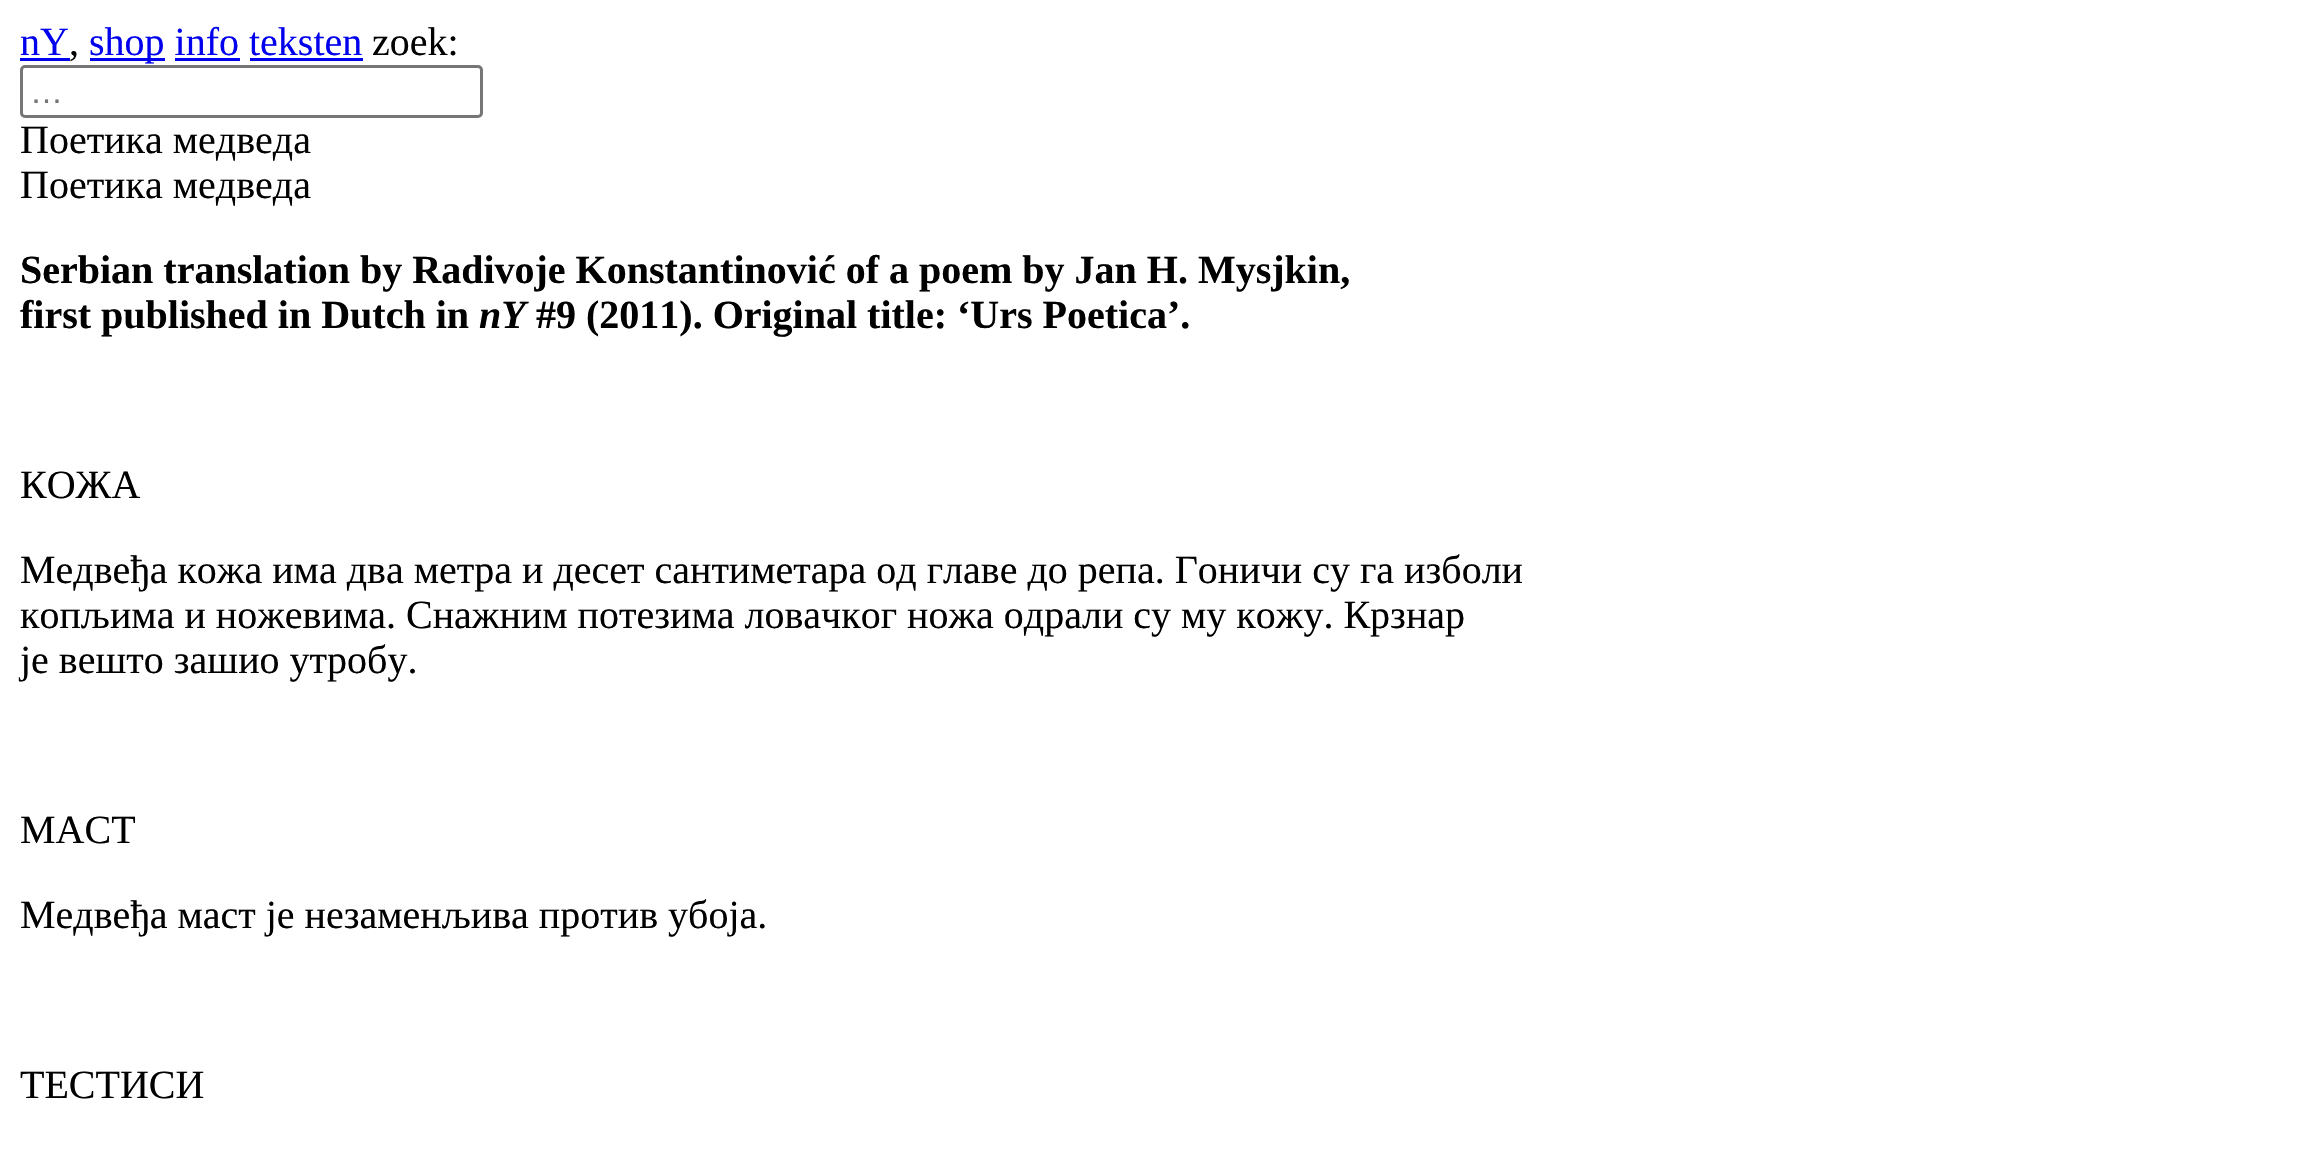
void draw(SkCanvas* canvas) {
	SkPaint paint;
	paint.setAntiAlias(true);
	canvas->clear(0xffffffff);
	paint.setColor(0xff0000ee);
	canvas->drawRect(SkRect::MakeXYWH(90, 58, 75, 3), paint);
	SkFont f1(fontMgr->matchFamilyStyle("Liberation Serif", SkFontStyle::Normal()), 40);
	f1.setSubpixel(true);
	canvas->drawString("shop info teksten", 89, 55, f1, paint);
	paint.setColor(0xff000000);
	canvas->drawString("zoek:", 372, 55, f1, paint);
	paint.setStroke(true);
	paint.setStrokeWidth(3);
	paint.setColor(0xff767676);
	canvas->drawRoundRect(SkRect::MakeXYWH(21.5, 66.5, 460, 50), 3.5, 3.5, paint);
	SkFont f2(fontMgr->matchFamilyStyle("Liberation Sans", SkFontStyle::Normal()), 33);
	f2.setSubpixel(true);
	paint.setStroke(false);
	paint.setColor(0xff757575);
	canvas->drawString("…", 30, 103, f2, paint);
	paint.setColor(0xff0000ee);
	canvas->drawRect(SkRect::MakeXYWH(175, 58, 65, 3), paint);
	canvas->drawRect(SkRect::MakeXYWH(250, 58, 113, 3), paint);
	canvas->drawString("nY", 20, 55, f1, paint);
	canvas->drawRect(SkRect::MakeXYWH(20, 58, 50, 3), paint);
	paint.setColor(0xff000000);
	canvas->drawString(",", 69, 55, f1, paint);
	canvas->drawString("Поетика медведа", 20, 153, f1, paint);
	canvas->drawString("Поетика медведа", 20, 198, f1, paint);
	SkFont f3(fontMgr->matchFamilyStyle("Liberation Serif", SkFontStyle::Bold()), 40);
	f3.setSubpixel(true);
	canvas->drawString("Serbian translation by Radivoje Konstantinović of a poem by Jan H. Mysjkin,", 20, 283, f3, paint);
	canvas->drawString("first published in Dutch in", 20, 328, f3, paint);
	SkFont f4(fontMgr->matchFamilyStyle("Liberation Serif", SkFontStyle::BoldItalic()), 40);
	f4.setSubpixel(true);
	canvas->drawString("nY", 479, 328, f4, paint);
	canvas->drawString("#9 (2011). Original title: ‘Urs Poetica’.", 536, 328, f3, paint);
	canvas->drawString("КОЖА", 20, 498, f1, paint);
	canvas->drawString("Медвеђа кожа има два метра и десет сантиметара од главе до репа. Гоничи су га изболи", 20, 583, f1, paint);
	canvas->drawString("копљима и ножевима. Снажним потезима ловачког ножа одрали су му кожу. Крзнар", 20, 628, f1, paint);
	canvas->drawString("је вешто зашио утробу.", 20, 673, f1, paint);
	canvas->drawString("МАСТ", 20, 843, f1, paint);
	canvas->drawString("Медвеђа маст је незаменљива против убоја.", 20, 928, f1, paint);
	canvas->drawString("ТЕСТИСИ", 20, 1098, f1, paint);
}
